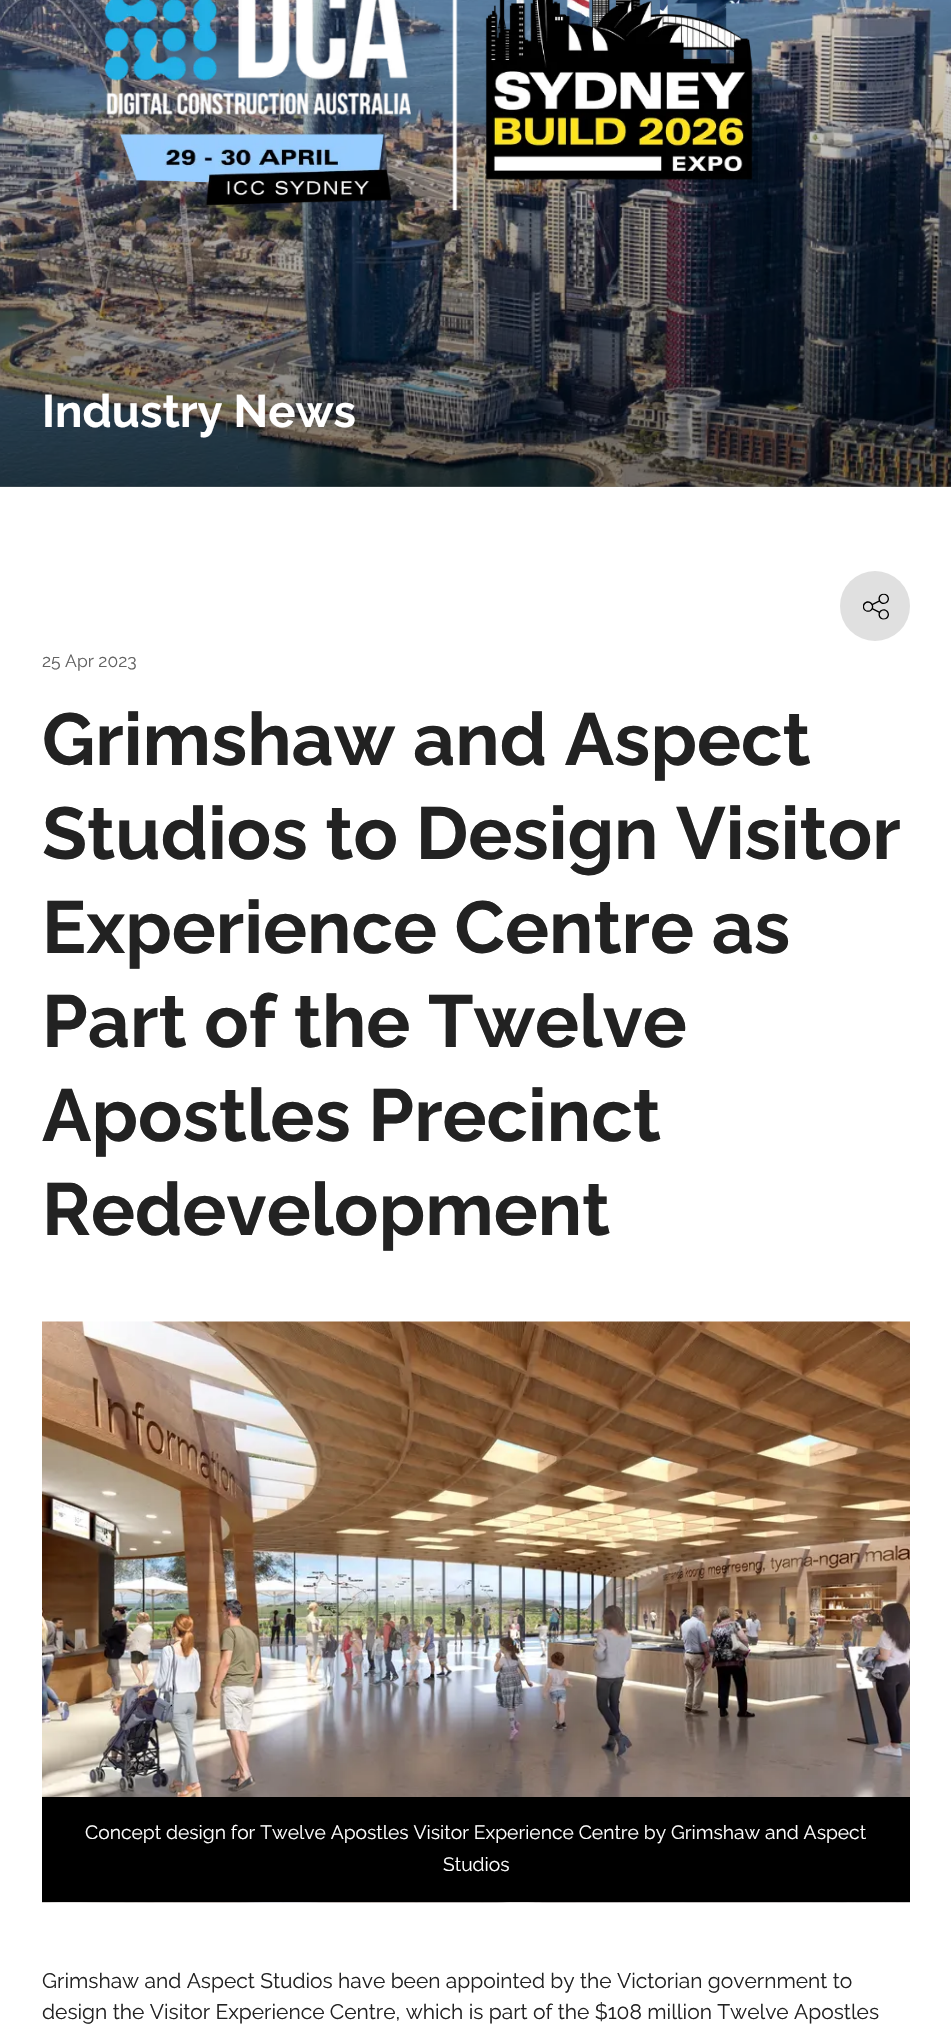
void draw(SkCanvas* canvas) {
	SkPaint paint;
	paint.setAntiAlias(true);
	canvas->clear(0xffffffff);
	canvas->drawImageRect(SkImages::DeferredFromEncodedData(SkData::MakeFromFileName("img2.png")), SkRect::MakeXYWH(0, 0, 951, 487), SkSamplingOptions());
	{
		const SkColor colors[] = {0x00000000, 0x80000000};
		const float stops[] = {0, 1};
		const SkPoint ends[] = {{476, -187}, {476, 487}};
		paint.setShader(SkGradientShader::MakeLinear(ends, colors, stops, 2, SkTileMode::kClamp));
		paint.setAlpha(255);
	}
	canvas->drawRect(SkRect::MakeXYWH(0, 0, 951, 487), paint);
	canvas->drawImageRect(SkImages::DeferredFromEncodedData(SkData::MakeFromFileName("img1.png")), SkRect::MakeXYWH(104, 0, 649, 211), SkSamplingOptions());
	SkFont f1(fontMgr->matchFamilyStyle("Raleway", SkFontStyle::Bold()), 45.5);
	f1.setSubpixel(true);
	paint.setShader(nullptr);
	paint.setColor(0xffffffff);
	canvas->drawString("Industry News", 42, 427, f1, paint);
	paint.setColor(0xffe0e0e0);
	canvas->drawCircle(875, 606, 35, paint);
	canvas->drawImageRect(SkImages::DeferredFromEncodedData(SkData::MakeFromFileName("img3.png")), SkRect::MakeXYWH(863, 593, 26, 27), SkSamplingOptions());
	SkFont f2(fontMgr->matchFamilyStyle("Raleway", SkFontStyle::Normal()), 17.5);
	f2.setSubpixel(true);
	paint.setColor(0xff626262);
	canvas->drawString("25 Apr 2023", 42, 667, f2, paint);
	SkFont f3(fontMgr->matchFamilyStyle("Raleway", SkFontStyle::Bold()), 73.5);
	f3.setSubpixel(true);
	paint.setColor(0xff222222);
	canvas->drawString("Grimshaw and Aspect", 42, 765, f3, paint);
	canvas->drawString("Studios to Design Visitor", 42, 859, f3, paint);
	canvas->drawString("Experience Centre as", 42, 953, f3, paint);
	canvas->drawString("Part of the Twelve", 42, 1047, f3, paint);
	canvas->drawString("Apostles Precinct", 42, 1141, f3, paint);
	canvas->drawString("Redevelopment", 42, 1235, f3, paint);
	canvas->drawImageRect(SkImages::DeferredFromEncodedData(SkData::MakeFromFileName("img4.png")), SkRect::MakeXYWH(42, 1321, 868, 582), SkSamplingOptions());
	paint.setColor(0xff000000);
	canvas->drawRect(SkRect::MakeXYWH(42, 1797, 868, 105), paint);
	SkFont f4(fontMgr->matchFamilyStyle("Raleway", SkFontStyle::Normal()), 19.25);
	f4.setSubpixel(true);
	paint.setColor(0xffffffff);
	canvas->drawString("Concept design for Twelve Apostles Visitor Experience Centre by Grimshaw and Aspect", 85, 1839, f4, paint);
	canvas->drawString("Studios", 443, 1871, f4, paint);
	SkFont f5(fontMgr->matchFamilyStyle("Raleway", SkFontStyle::Normal()), 21);
	f5.setSubpixel(true);
	paint.setColor(0xff222222);
	canvas->drawString("Grimshaw and Aspect Studios have been appointed by the Victorian government to", 42, 1988, f5, paint);
	canvas->drawString("design the Visitor Experience Centre, which is part of the $108 million Twelve Apostles", 42, 2019, f5, paint);
}
